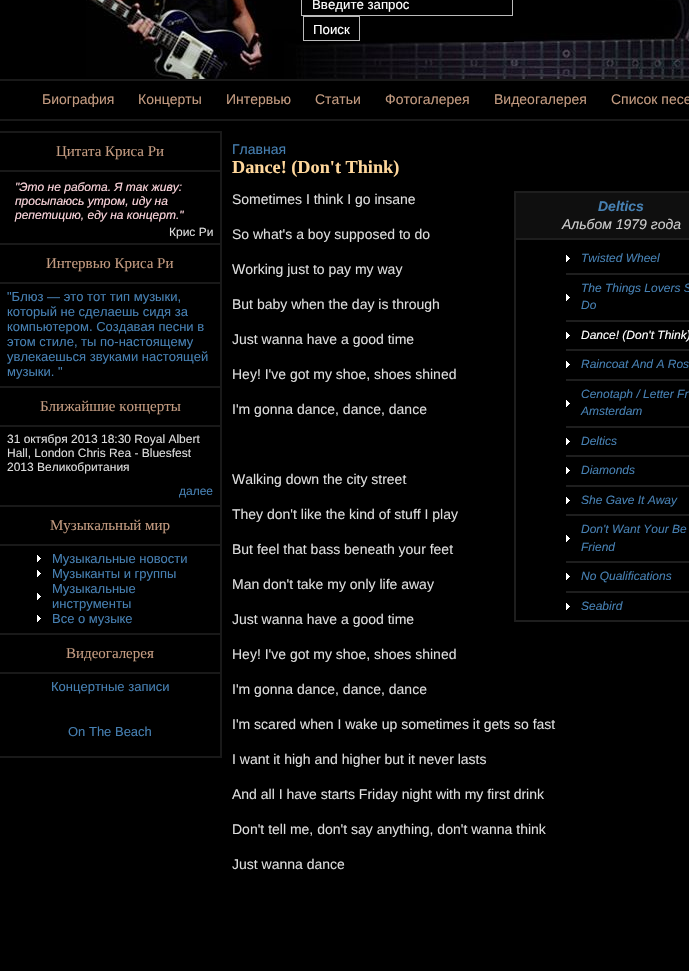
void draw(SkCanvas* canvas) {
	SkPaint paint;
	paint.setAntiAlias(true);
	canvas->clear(0xff000000);
	canvas->drawImageRect(SkImages::DeferredFromEncodedData(SkData::MakeFromFileName("img1.png")), SkRect::MakeXYWH(86, 0, 603, 79), SkSamplingOptions());
	paint.setColor(0xff191919);
	canvas->drawRect(SkRect::MakeXYWH(0, 79, 689, 2), paint);
	paint.setColor(0xff000000);
	canvas->drawRect(SkRect::MakeXYWH(356, 33, 158, 9), paint);
	paint.setStroke(true);
	paint.setStrokeWidth(1);
	paint.setColor(0xffbbbbbb);
	canvas->drawRect(SkRect::MakeXYWH(301.5, -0.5, 211, 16), paint);
	SkFont f1(fontMgr->matchFamilyStyle("Liberation Sans", SkFontStyle::Normal()), 13.25);
	f1.setSubpixel(true);
	paint.setStroke(false);
	paint.setColor(0xffffffff);
	canvas->drawString("Введите запрос", 312, 9, f1, paint);
	paint.setStroke(true);
	paint.setColor(0xffbbbbbb);
	canvas->drawRect(SkRect::MakeXYWH(303.5, 16.5, 56, 24), paint);
	paint.setStroke(false);
	paint.setColor(0xffffffff);
	canvas->drawString("Поиск", 313, 34, f1, paint);
	paint.setColor(0xff191919);
	canvas->drawRect(SkRect::MakeXYWH(0, 119, 689, 2), paint);
	SkFont f2(fontMgr->matchFamilyStyle("Liberation Sans", SkFontStyle::Normal()), 14);
	f2.setSubpixel(true);
	paint.setColor(0xffc29a80);
	canvas->drawString("Биография", 42, 104, f2, paint);
	canvas->drawString("Концерты", 138, 104, f2, paint);
	canvas->drawString("Интервью", 226, 104, f2, paint);
	canvas->drawString("Статьи", 315, 104, f2, paint);
	canvas->drawString("Фотогалерея", 385, 104, f2, paint);
	canvas->drawString("Видеогалерея", 494, 104, f2, paint);
	canvas->drawString("Список песе", 611, 104, f2, paint);
	paint.setColor(0xff191919);
	canvas->drawRect(SkRect::MakeXYWH(220, 131, 2, 627), paint);
	canvas->drawRect(SkRect::MakeXYWH(0, 756, 222, 2), paint);
	canvas->drawRect(SkRect::MakeXYWH(0, 131, 220, 2), paint);
	canvas->drawRect(SkRect::MakeXYWH(0, 170, 220, 2), paint);
	SkFont f3(fontMgr->matchFamilyStyle("Liberation Serif", SkFontStyle::Normal()), 15);
	f3.setSubpixel(true);
	paint.setColor(0xffc29a80);
	canvas->drawString("Цитата Криса Ри", 56, 156, f3, paint);
	SkFont f4(fontMgr->matchFamilyStyle("Liberation Sans", SkFontStyle::Italic()), 12);
	f4.setSubpixel(true);
	paint.setColor(0xfffcd5dc);
	canvas->drawString("\"Это не работа. Я так живу:", 15, 191, f4, paint);
	canvas->drawString("просыпаюсь утром, иду на", 15, 205, f4, paint);
	canvas->drawString("репетицию, еду на концерт.\"", 15, 219, f4, paint);
	SkFont f5(fontMgr->matchFamilyStyle("Liberation Sans", SkFontStyle::Normal()), 12);
	f5.setSubpixel(true);
	paint.setColor(0xffdddddd);
	canvas->drawString("Крис Ри", 169, 236, f5, paint);
	paint.setColor(0xff191919);
	canvas->drawRect(SkRect::MakeXYWH(0, 243, 220, 2), paint);
	canvas->drawRect(SkRect::MakeXYWH(0, 282, 220, 2), paint);
	paint.setColor(0xffc29a80);
	canvas->drawString("Интервью Криса Ри", 46, 268, f3, paint);
	SkFont f6(fontMgr->matchFamilyStyle("Liberation Sans", SkFontStyle::Normal()), 13);
	f6.setSubpixel(true);
	paint.setColor(0xff4680b2);
	canvas->drawString("\"Блюз — это тот тип музыки,", 7, 301, f6, paint);
	canvas->drawString("который не сделаешь сидя за", 7, 316, f6, paint);
	canvas->drawString("компьютером. Создавая песни в", 7, 331, f6, paint);
	canvas->drawString("этом стиле, ты по-настоящему", 7, 346, f6, paint);
	canvas->drawString("увлекаешься звуками настоящей", 7, 361, f6, paint);
	canvas->drawString("музыки. \"", 7, 376, f6, paint);
	paint.setColor(0xff191919);
	canvas->drawRect(SkRect::MakeXYWH(0, 386, 220, 2), paint);
	canvas->drawRect(SkRect::MakeXYWH(0, 425, 220, 2), paint);
	paint.setColor(0xffc29a80);
	canvas->drawString("Ближайшие концерты", 40, 411, f3, paint);
	paint.setColor(0xffdddddd);
	canvas->drawString("31 октября 2013 18:30 Royal Albert", 7, 443, f5, paint);
	canvas->drawString("Hall, London Chris Rea - Bluesfest", 7, 457, f5, paint);
	canvas->drawString("2013 Великобритания", 7, 471, f5, paint);
	paint.setColor(0xff4680b2);
	canvas->drawString("далее", 179, 495, f5, paint);
	paint.setColor(0xff191919);
	canvas->drawRect(SkRect::MakeXYWH(0, 505, 220, 2), paint);
	canvas->drawRect(SkRect::MakeXYWH(0, 544, 220, 2), paint);
	paint.setColor(0xffc29a80);
	canvas->drawString("Музыкальный мир", 50, 530, f3, paint);
	canvas->drawImageRect(SkImages::DeferredFromEncodedData(SkData::MakeFromFileName("img2.png")), SkRect::MakeXYWH(37, 555, 4, 7), SkSamplingOptions());
	paint.setColor(0xff4680b2);
	canvas->drawString("Музыкальные новости", 52, 563, f6, paint);
	canvas->drawImageRect(SkImages::DeferredFromEncodedData(SkData::MakeFromFileName("img2.png")), SkRect::MakeXYWH(37, 570, 4, 7), SkSamplingOptions());
	canvas->drawString("Музыканты и группы", 52, 578, f6, paint);
	canvas->drawImageRect(SkImages::DeferredFromEncodedData(SkData::MakeFromFileName("img2.png")), SkRect::MakeXYWH(37, 593, 4, 7), SkSamplingOptions());
	canvas->drawString("Музыкальные", 52, 593, f6, paint);
	canvas->drawString("инструменты", 52, 608, f6, paint);
	canvas->drawImageRect(SkImages::DeferredFromEncodedData(SkData::MakeFromFileName("img2.png")), SkRect::MakeXYWH(37, 615, 4, 7), SkSamplingOptions());
	canvas->drawString("Все о музыке", 52, 623, f6, paint);
	paint.setColor(0xff191919);
	canvas->drawRect(SkRect::MakeXYWH(0, 633, 220, 2), paint);
	canvas->drawRect(SkRect::MakeXYWH(0, 672, 220, 2), paint);
	paint.setColor(0xffc29a80);
	canvas->drawString("Видеогалерея", 66, 658, f3, paint);
	paint.setColor(0xff4680b2);
	canvas->drawString("Концертные записи", 51, 691, f6, paint);
	canvas->drawString("On The Beach", 68, 736, f6, paint);
	canvas->drawString("Главная", 232, 154, f2, paint);
	SkFont f7(fontMgr->matchFamilyStyle("Liberation Serif", SkFontStyle::Bold()), 18.25);
	f7.setSubpixel(true);
	paint.setColor(0xffffd79b);
	canvas->drawString("Dance! (Don't Think)", 232, 173, f7, paint);
	paint.setColor(0xffdddddd);
	canvas->drawString("Sometimes I think I go insane", 232, 204, f2, paint);
	canvas->drawString("So what's a boy supposed to do", 232, 239, f2, paint);
	canvas->drawString("Working just to pay my way", 232, 274, f2, paint);
	canvas->drawString("But baby when the day is through", 232, 309, f2, paint);
	canvas->drawString("Just wanna have a good time", 232, 344, f2, paint);
	canvas->drawString("Hey! I've got my shoe, shoes shined", 232, 379, f2, paint);
	canvas->drawString("I'm gonna dance, dance, dance", 232, 414, f2, paint);
	canvas->drawString("Walking down the city street", 232, 484, f2, paint);
	canvas->drawString("They don't like the kind of stuff I play", 232, 519, f2, paint);
	canvas->drawString("But feel that bass beneath your feet", 232, 554, f2, paint);
	canvas->drawString("Man don't take my only life away", 232, 589, f2, paint);
	canvas->drawString("Just wanna have a good time", 232, 624, f2, paint);
	canvas->drawString("Hey! I've got my shoe, shoes shined", 232, 659, f2, paint);
	canvas->drawString("I'm gonna dance, dance, dance", 232, 694, f2, paint);
	canvas->drawString("I'm scared when I wake up sometimes it gets so fast", 232, 729, f2, paint);
	canvas->drawString("I want it high and higher but it never lasts", 232, 764, f2, paint);
	canvas->drawString("And all I have starts Friday night with my first drink", 232, 799, f2, paint);
	canvas->drawString("Don't tell me, don't say anything, don't wanna think", 232, 834, f2, paint);
	canvas->drawString("Just wanna dance", 232, 869, f2, paint);
	paint.setStroke(true);
	paint.setStrokeWidth(2);
	paint.setColor(0xff1e1e1e);
	canvas->drawRect(SkRect::MakeXYWH(515, 192, 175, 429), paint);
	paint.setStroke(false);
	paint.setColor(0xff0f0f0f);
	canvas->drawRect(SkRect::MakeXYWH(516, 193, 173, 45), paint);
	paint.setColor(0xff1e1e1e);
	canvas->drawRect(SkRect::MakeXYWH(516, 238, 173, 2), paint);
	SkFont f8(fontMgr->matchFamilyStyle("Liberation Sans", SkFontStyle::BoldItalic()), 14);
	f8.setSubpixel(true);
	paint.setColor(0xff4680b2);
	canvas->drawString("Deltics", 598, 211, f8, paint);
	SkFont f9(fontMgr->matchFamilyStyle("Liberation Sans", SkFontStyle::Italic()), 14);
	f9.setSubpixel(true);
	paint.setColor(0xffcccccc);
	canvas->drawString("Альбом 1979 года", 562, 229, f9, paint);
	canvas->drawImageRect(SkImages::DeferredFromEncodedData(SkData::MakeFromFileName("img2.png")), SkRect::MakeXYWH(566, 255, 4, 7), SkSamplingOptions());
	paint.setColor(0xff1e1e1e);
	canvas->drawRect(SkRect::MakeXYWH(566, 273, 123, 2), paint);
	paint.setColor(0xff4680b2);
	canvas->drawString("Twisted Wheel", 581, 262, f4, paint);
	canvas->drawImageRect(SkImages::DeferredFromEncodedData(SkData::MakeFromFileName("img2.png")), SkRect::MakeXYWH(566, 294, 4, 7), SkSamplingOptions());
	paint.setColor(0xff1e1e1e);
	canvas->drawRect(SkRect::MakeXYWH(566, 320, 123, 2), paint);
	paint.setColor(0xff4680b2);
	canvas->drawString("The Things Lovers S", 581, 292, f4, paint);
	canvas->drawString("Do", 581, 309, f4, paint);
	canvas->drawImageRect(SkImages::DeferredFromEncodedData(SkData::MakeFromFileName("img2.png")), SkRect::MakeXYWH(566, 332, 4, 7), SkSamplingOptions());
	paint.setColor(0xff1e1e1e);
	canvas->drawRect(SkRect::MakeXYWH(566, 349, 123, 2), paint);
	paint.setColor(0xffffffff);
	canvas->drawString("Dance! (Don't Think)", 581, 339, f4, paint);
	canvas->drawImageRect(SkImages::DeferredFromEncodedData(SkData::MakeFromFileName("img2.png")), SkRect::MakeXYWH(566, 361, 4, 7), SkSamplingOptions());
	paint.setColor(0xff1e1e1e);
	canvas->drawRect(SkRect::MakeXYWH(566, 379, 123, 2), paint);
	paint.setColor(0xff4680b2);
	canvas->drawString("Raincoat And A Ros", 581, 368, f4, paint);
	canvas->drawImageRect(SkImages::DeferredFromEncodedData(SkData::MakeFromFileName("img2.png")), SkRect::MakeXYWH(566, 400, 4, 7), SkSamplingOptions());
	paint.setColor(0xff1e1e1e);
	canvas->drawRect(SkRect::MakeXYWH(566, 426, 123, 2), paint);
	paint.setColor(0xff4680b2);
	canvas->drawString("Cenotaph / Letter Fr", 581, 398, f4, paint);
	canvas->drawString("Amsterdam", 581, 415, f4, paint);
	canvas->drawImageRect(SkImages::DeferredFromEncodedData(SkData::MakeFromFileName("img2.png")), SkRect::MakeXYWH(566, 438, 4, 7), SkSamplingOptions());
	paint.setColor(0xff1e1e1e);
	canvas->drawRect(SkRect::MakeXYWH(566, 455, 123, 2), paint);
	paint.setColor(0xff4680b2);
	canvas->drawString("Deltics", 581, 445, f4, paint);
	canvas->drawImageRect(SkImages::DeferredFromEncodedData(SkData::MakeFromFileName("img2.png")), SkRect::MakeXYWH(566, 467, 4, 7), SkSamplingOptions());
	paint.setColor(0xff1e1e1e);
	canvas->drawRect(SkRect::MakeXYWH(566, 485, 123, 2), paint);
	paint.setColor(0xff4680b2);
	canvas->drawString("Diamonds", 581, 474, f4, paint);
	canvas->drawImageRect(SkImages::DeferredFromEncodedData(SkData::MakeFromFileName("img2.png")), SkRect::MakeXYWH(566, 497, 4, 7), SkSamplingOptions());
	paint.setColor(0xff1e1e1e);
	canvas->drawRect(SkRect::MakeXYWH(566, 514, 123, 2), paint);
	paint.setColor(0xff4680b2);
	canvas->drawString("She Gave It Away", 581, 504, f4, paint);
	canvas->drawImageRect(SkImages::DeferredFromEncodedData(SkData::MakeFromFileName("img2.png")), SkRect::MakeXYWH(566, 535, 4, 7), SkSamplingOptions());
	paint.setColor(0xff1e1e1e);
	canvas->drawRect(SkRect::MakeXYWH(566, 561, 123, 2), paint);
	paint.setColor(0xff4680b2);
	canvas->drawString("Don't Want Your Be", 581, 533, f4, paint);
	canvas->drawString("Friend", 581, 551, f4, paint);
	canvas->drawImageRect(SkImages::DeferredFromEncodedData(SkData::MakeFromFileName("img2.png")), SkRect::MakeXYWH(566, 573, 4, 7), SkSamplingOptions());
	paint.setColor(0xff1e1e1e);
	canvas->drawRect(SkRect::MakeXYWH(566, 591, 123, 2), paint);
	paint.setColor(0xff4680b2);
	canvas->drawString("No Qualifications", 581, 580, f4, paint);
	canvas->drawImageRect(SkImages::DeferredFromEncodedData(SkData::MakeFromFileName("img2.png")), SkRect::MakeXYWH(566, 603, 4, 7), SkSamplingOptions());
	canvas->drawString("Seabird", 581, 610, f4, paint);
}
